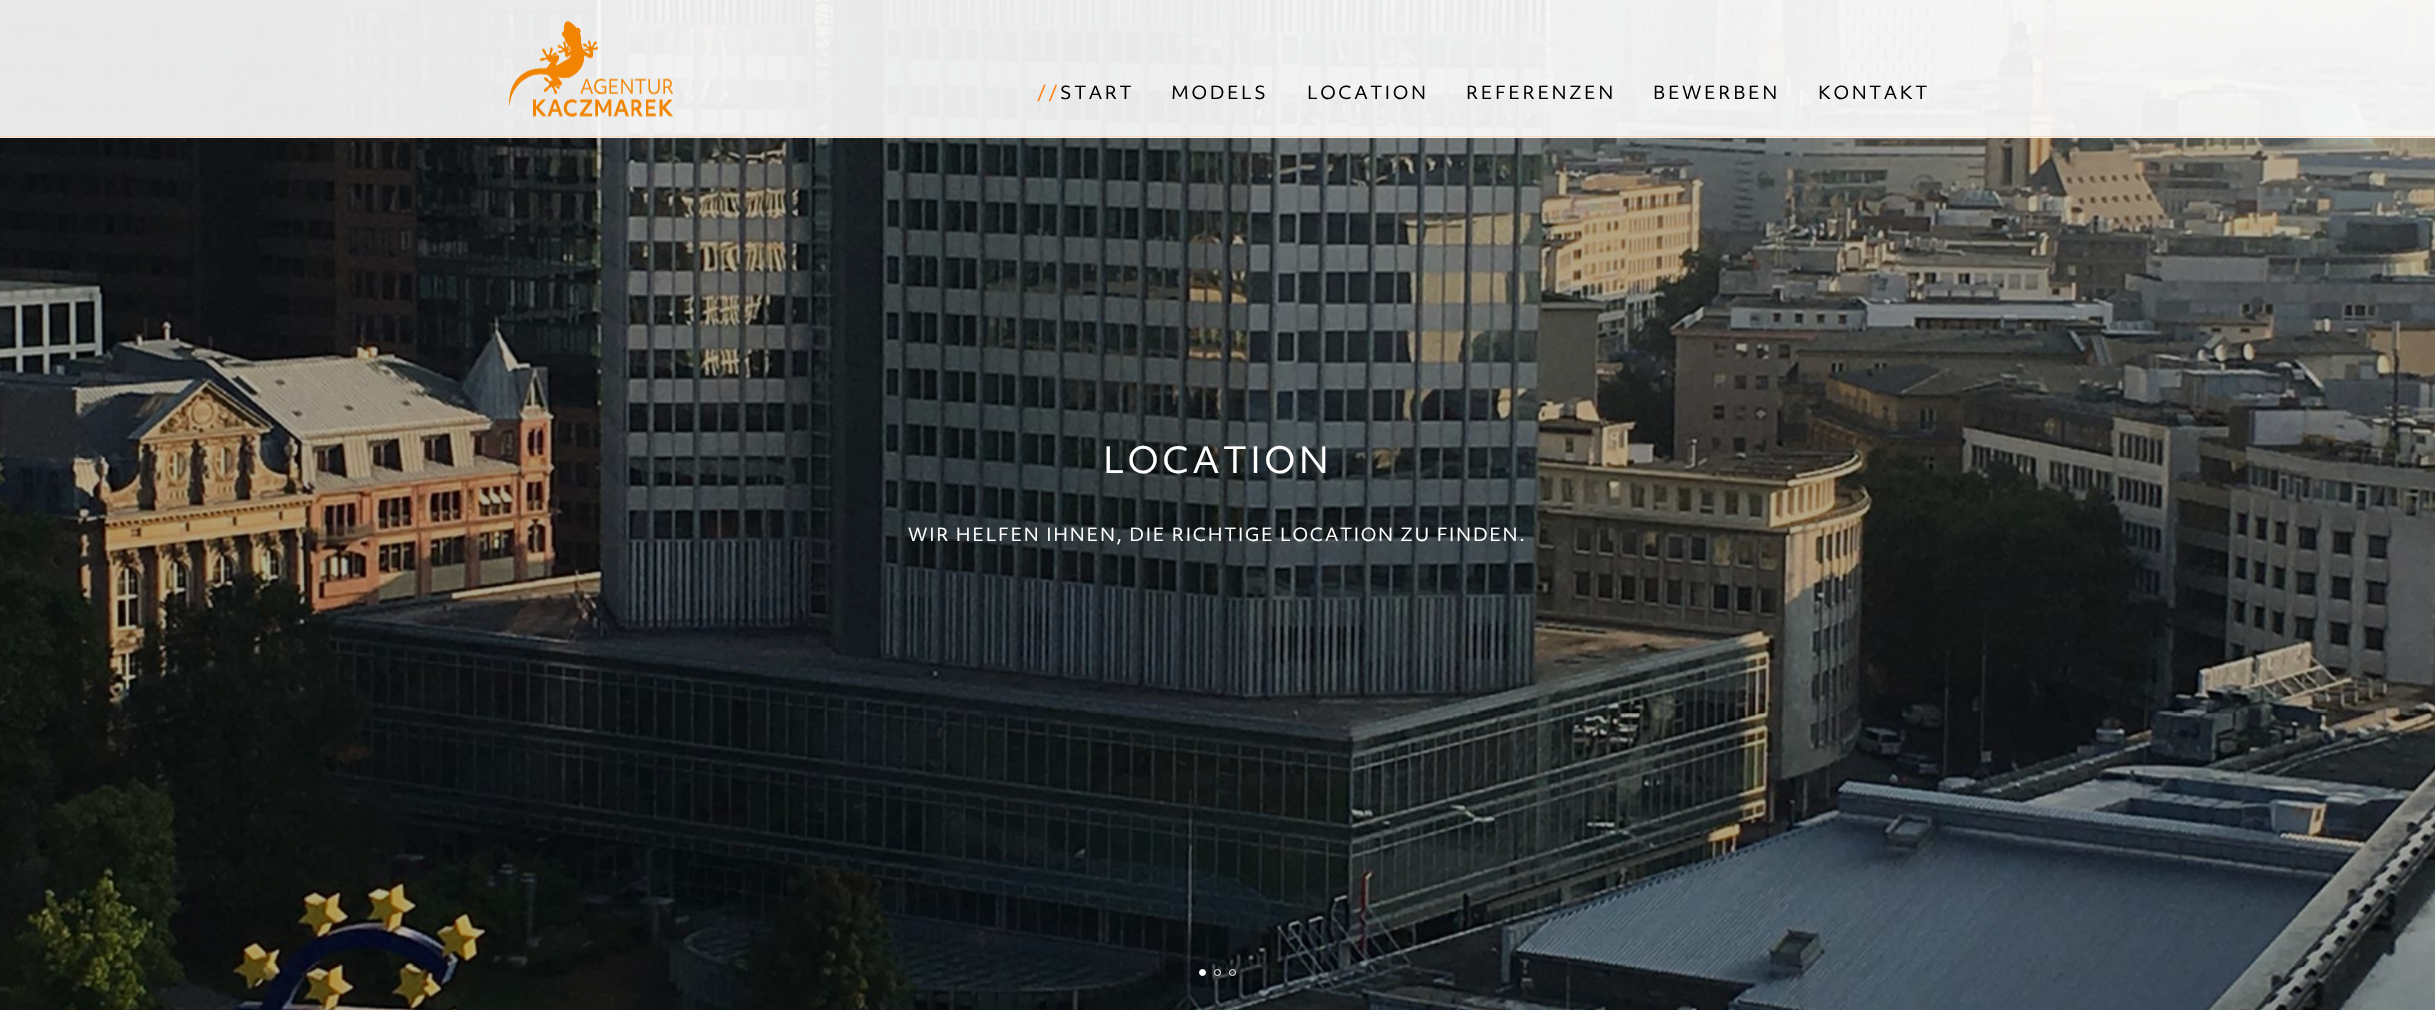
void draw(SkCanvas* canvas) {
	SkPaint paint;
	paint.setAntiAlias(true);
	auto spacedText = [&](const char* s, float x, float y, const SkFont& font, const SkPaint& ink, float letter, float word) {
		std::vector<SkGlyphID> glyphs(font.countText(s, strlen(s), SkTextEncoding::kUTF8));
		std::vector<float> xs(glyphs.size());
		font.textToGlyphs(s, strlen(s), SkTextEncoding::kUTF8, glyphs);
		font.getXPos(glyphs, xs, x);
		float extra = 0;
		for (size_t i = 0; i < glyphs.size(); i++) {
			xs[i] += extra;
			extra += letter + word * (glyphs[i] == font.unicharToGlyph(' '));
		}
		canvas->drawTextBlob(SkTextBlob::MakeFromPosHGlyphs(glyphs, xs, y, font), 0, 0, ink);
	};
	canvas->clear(0xffffffff);
	canvas->drawImageRect(SkImages::DeferredFromEncodedData(SkData::MakeFromFileName("img2.png")), SkRect::MakeXYWH(0, 0, 2435, 1010), SkSamplingOptions());
	paint.setColor(0xe6ffffff);
	canvas->drawRect(SkRect::MakeXYWH(0, 0, 2435, 138), paint);
	paint.setColor(0xffffd9b8);
	canvas->drawRect(SkRect::MakeXYWH(0, 136, 2435, 1), paint);
	canvas->drawImageRect(SkImages::DeferredFromEncodedData(SkData::MakeFromFileName("img1.png")), SkRect::MakeXYWH(509, 20, 164, 97), SkSamplingOptions());
	SkFont f1(fontMgr->matchFamilyStyle("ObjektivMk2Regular", SkFontStyle::Normal()), 17.5);
	f1.setSubpixel(true);
	paint.setColor(0xffff8117);
	spacedText("//", 1037, 99, f1, paint, 2.6, 0);
	paint.setColor(0xff000000);
	spacedText("START", 1060, 99, f1, paint, 2.6, 0);
	spacedText("MODELS", 1171, 99, f1, paint, 2.6, 0);
	spacedText("LOCATION", 1307, 99, f1, paint, 2.6, 0);
	spacedText("REFERENZEN", 1466, 99, f1, paint, 2.6, 0);
	spacedText("BEWERBEN", 1653, 99, f1, paint, 2.6, 0);
	spacedText("KONTAKT", 1818, 99, f1, paint, 2.6, 0);
	SkFont f2(fontMgr->matchFamilyStyle("ObjektivMk2Regular", SkFontStyle::Normal()), 35);
	f2.setSubpixel(true);
	paint.setColor(0xffffffff);
	spacedText("LOCATION", 1103, 473, f2, paint, 3.5, 0);
	spacedText("WIR HELFEN IHNEN, DIE RICHTIGE LOCATION ZU FINDEN.", 908, 541, f1, paint, 1.75, 0);
	canvas->drawCircle(1202.5, 972.5, 3, paint);
	paint.setStroke(true);
	paint.setStrokeWidth(1);
	canvas->drawCircle(1202.5, 972.5, 3, paint);
	canvas->drawCircle(1217.5, 972.5, 3, paint);
	canvas->drawCircle(1232.5, 972.5, 3, paint);
}
